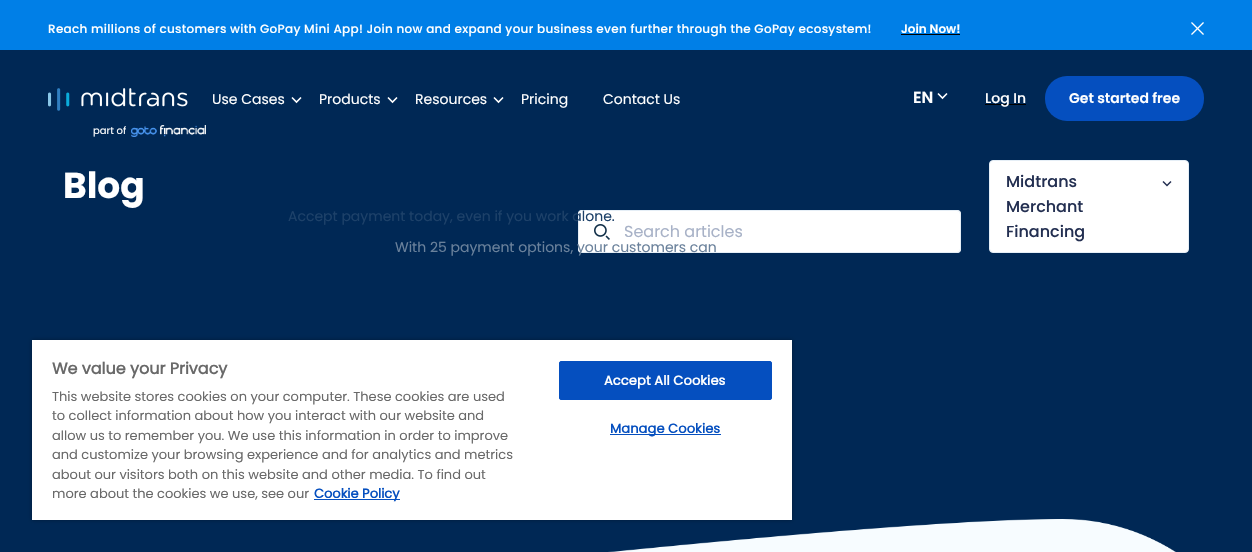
void draw(SkCanvas* canvas) {
	SkPaint paint;
	paint.setAntiAlias(true);
	auto spacedText = [&](const char* s, float x, float y, const SkFont& font, const SkPaint& ink, float letter, float word) {
		std::vector<SkGlyphID> glyphs(font.countText(s, strlen(s), SkTextEncoding::kUTF8));
		std::vector<float> xs(glyphs.size());
		font.textToGlyphs(s, strlen(s), SkTextEncoding::kUTF8, glyphs);
		font.getXPos(glyphs, xs, x);
		float extra = 0;
		for (size_t i = 0; i < glyphs.size(); i++) {
			xs[i] += extra;
			extra += letter + word * (glyphs[i] == font.unicharToGlyph(' '));
		}
		canvas->drawTextBlob(SkTextBlob::MakeFromPosHGlyphs(glyphs, xs, y, font), 0, 0, ink);
	};
	auto svgPath = [&](const char* data, bool evenOdd = false) {
		SkPath result = *SkParsePath::FromSVGString(data);
		if (evenOdd) result.setFillType(SkPathFillType::kEvenOdd);
		return result;
	};
	canvas->clear(0xff002855);
	paint.setColor(0xff007fe7);
	canvas->drawRect(SkRect::MakeXYWH(0, 0, 1252, 50), paint);
	SkFont f1(fontMgr->matchFamilyStyle("Poppins", SkFontStyle(500, SkFontStyle::kNormal_Width, SkFontStyle::kUpright_Slant)), 12);
	f1.setSubpixel(true);
	paint.setColor(0xffffffff);
	spacedText("Reach millions of customers with GoPay Mini App! Join now and expand your business even further through the GoPay ecosystem!", 48, 33, f1, paint, 0.3, 0);
	SkFont f2(fontMgr->matchFamilyStyle("Poppins", SkFontStyle(600, SkFontStyle::kNormal_Width, SkFontStyle::kUpright_Slant)), 12);
	f2.setSubpixel(true);
	canvas->drawString("Join Now!", 901, 33, f2, paint);
	paint.setColor(0xff000000);
	canvas->drawRect(SkRect::MakeXYWH(901, 34, 59, 1), paint);
	canvas->drawImageRect(SkImages::DeferredFromEncodedData(SkData::MakeFromFileName("img1.png")), SkRect::MakeXYWH(1191, 22, 13, 13), SkSamplingOptions());
	canvas->drawImageRect(SkImages::DeferredFromEncodedData(SkData::MakeFromFileName("img2.png")), SkRect::MakeXYWH(48, 88, 140, 23), SkSamplingOptions());
	SkFont f3(fontMgr->matchFamilyStyle("Poppins", SkFontStyle::Normal()), 14);
	f3.setSubpixel(true);
	paint.setColor(0xffffffff);
	canvas->drawString("Products", 319, 104, f3, paint);
	paint.setStroke(true);
	paint.setStrokeWidth(1.6);
	canvas->drawPath(svgPath("M388 97.5L392.5 102L397 97.5"), paint);
	paint.setStroke(false);
	canvas->drawRoundRect(SkRect::MakeXYWH(578, 210, 383, 43), 4, 4, paint);
	canvas->drawImageRect(SkImages::DeferredFromEncodedData(SkData::MakeFromFileName("img4.png")), SkRect::MakeXYWH(594, 224, 16, 16), SkSamplingOptions());
	paint.setStroke(true);
	paint.setStrokeWidth(1);
	paint.setColor(0xffe5eef6);
	canvas->drawRoundRect(SkRect::MakeXYWH(578.5, 210.5, 382, 42), 3.5, 3.5, paint);
	paint.setStroke(false);
	paint.setColor(0xff6a819b);
	canvas->drawString("With 25 payment options, your customers can", 395, 252, f3, paint);
	paint.setColor(0xffffffff);
	canvas->drawString("Pricing", 521, 104, f3, paint);
	canvas->drawString("Use Cases", 212, 104, f3, paint);
	paint.setStroke(true);
	paint.setStrokeWidth(1.6);
	canvas->drawPath(svgPath("M292 97.5L296.5 102L301 97.5"), paint);
	paint.setStroke(false);
	paint.setColor(0xff1d4169);
	canvas->drawString("Accept payment today, even if you work alone.", 288, 221, f3, paint);
	paint.setColor(0xffffffff);
	canvas->drawString("Resources", 415, 104, f3, paint);
	paint.setStroke(true);
	canvas->drawPath(svgPath("M494 97.5L498.5 102L503 97.5"), paint);
	paint.setStroke(false);
	canvas->drawString("Contact Us", 603, 104, f3, paint);
	SkFont f4(fontMgr->matchFamilyStyle("Poppins", SkFontStyle::Normal()), 10);
	f4.setSubpixel(true);
	canvas->drawString("part of", 93, 134, f4, paint);
	canvas->drawImageRect(SkImages::DeferredFromEncodedData(SkData::MakeFromFileName("img3.png")), SkRect::MakeXYWH(131, 125, 75, 12), SkSamplingOptions());
	SkFont f5(fontMgr->matchFamilyStyle("Poppins", SkFontStyle(600, SkFontStyle::kNormal_Width, SkFontStyle::kUpright_Slant)), 16);
	f5.setSubpixel(true);
	canvas->drawString("EN", 913, 103, f5, paint);
	paint.setStroke(true);
	canvas->drawPath(svgPath("M938 93.5L942.5 98L947 93.5"), paint);
	paint.setStroke(false);
	paint.setColor(0xff000000);
	canvas->drawRect(SkRect::MakeXYWH(985, 104, 41, 1), paint);
	SkFont f6(fontMgr->matchFamilyStyle("Poppins", SkFontStyle(500, SkFontStyle::kNormal_Width, SkFontStyle::kUpright_Slant)), 14);
	f6.setSubpixel(true);
	paint.setColor(0xffffffff);
	canvas->drawString("Log In", 985, 103, f6, paint);
	paint.setColor(0xff054fbf);
	canvas->drawRoundRect(SkRect::MakeXYWH(1045, 76, 159, 45), 22, 22, paint);
	SkFont f7(fontMgr->matchFamilyStyle("Poppins", SkFontStyle(600, SkFontStyle::kNormal_Width, SkFontStyle::kUpright_Slant)), 14);
	f7.setSubpixel(true);
	paint.setColor(0xffffffff);
	canvas->drawString("Get started free", 1069, 103, f7, paint);
	SkFont f8(fontMgr->matchFamilyStyle("Poppins", SkFontStyle::Bold()), 36);
	f8.setSubpixel(true);
	canvas->drawString("Blog", 63, 198, f8, paint);
	SkFont f9(fontMgr->matchFamilyStyle("Poppins", SkFontStyle::Normal()), 16);
	f9.setSubpixel(true);
	paint.setColor(0xffa8b2c7);
	canvas->drawString("Search articles", 624, 237, f9, paint);
	paint.setColor(0xffffffff);
	canvas->drawRoundRect(SkRect::MakeXYWH(989.5, 160.5, 199, 92), 3.5, 3.5, paint);
	paint.setStroke(true);
	paint.setStrokeWidth(1);
	paint.setColor(0xffe5eef6);
	canvas->drawRoundRect(SkRect::MakeXYWH(989.5, 160.5, 199, 92), 3.5, 3.5, paint);
	SkFont f10(fontMgr->matchFamilyStyle("Poppins", SkFontStyle(500, SkFontStyle::kNormal_Width, SkFontStyle::kUpright_Slant)), 16);
	f10.setSubpixel(true);
	paint.setStroke(false);
	paint.setColor(0xff232f51);
	canvas->drawString("Midtrans", 1006, 187, f10, paint);
	paint.setStroke(true);
	paint.setStrokeWidth(1.5);
	canvas->drawPath(svgPath("M1171 181.5L1167 185.5L1163 181.5"), paint);
	paint.setStroke(false);
	canvas->drawString("Merchant", 1006, 212, f10, paint);
	canvas->drawString("Financing", 1006, 237, f10, paint);
	canvas->drawImageRect(SkImages::DeferredFromEncodedData(SkData::MakeFromFileName("img5.png")), SkRect::MakeXYWH(608, 519, 568, 33), SkSamplingOptions());
	paint.setColor(0x59000000);
	paint.setMaskFilter(SkMaskFilter::MakeBlur(kNormal_SkBlurStyle, 2));
	canvas->drawRect(SkRect::MakeXYWH(32, 340, 760, 180), paint);
	paint.setMaskFilter(nullptr);
	paint.setColor(0xffffffff);
	canvas->drawRect(SkRect::MakeXYWH(32, 340, 760, 180), paint);
	SkFont f11(fontMgr->matchFamilyStyle("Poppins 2", SkFontStyle::Bold()), 16);
	f11.setSubpixel(true);
	paint.setColor(0xff696969);
	canvas->drawString("We value your Privacy", 52, 374, f11, paint);
	SkFont f12(fontMgr->matchFamilyStyle("Poppins", SkFontStyle::Normal()), 13);
	f12.setSubpixel(true);
	canvas->drawString("This website stores cookies on your computer. These cookies are used", 52, 401, f12, paint);
	canvas->drawString("to collect information about how you interact with our website and", 52, 420, f12, paint);
	canvas->drawString("allow us to remember you. We use this information in order to improve", 52, 440, f12, paint);
	canvas->drawString("and customize your browsing experience and for analytics and metrics", 52, 459, f12, paint);
	canvas->drawString("about our visitors both on this website and other media. To find out", 52, 479, f12, paint);
	canvas->drawString("more about the cookies we use, see our", 52, 498, f12, paint);
	paint.setColor(0xff054fbf);
	canvas->drawRect(SkRect::MakeXYWH(314, 499, 86, 1), paint);
	SkFont f13(fontMgr->matchFamilyStyle("Poppins 2", SkFontStyle::Bold()), 13);
	f13.setSubpixel(true);
	canvas->drawString("Cookie Policy", 314, 498, f13, paint);
	canvas->drawRoundRect(SkRect::MakeXYWH(559.5, 361.5, 212, 38), 1.5, 1.5, paint);
	paint.setStroke(true);
	paint.setStrokeWidth(1);
	canvas->drawRoundRect(SkRect::MakeXYWH(559.5, 361.5, 212, 38), 1.5, 1.5, paint);
	paint.setStroke(false);
	paint.setColor(0xffffffff);
	spacedText("Accept All Cookies", 604, 385, f13, paint, 0.1, 0);
	paint.setColor(0xff054fbf);
	canvas->drawRect(SkRect::MakeXYWH(610, 434, 111, 1), paint);
	spacedText("Manage Cookies", 610, 433, f13, paint, 0.1, 0);
}
